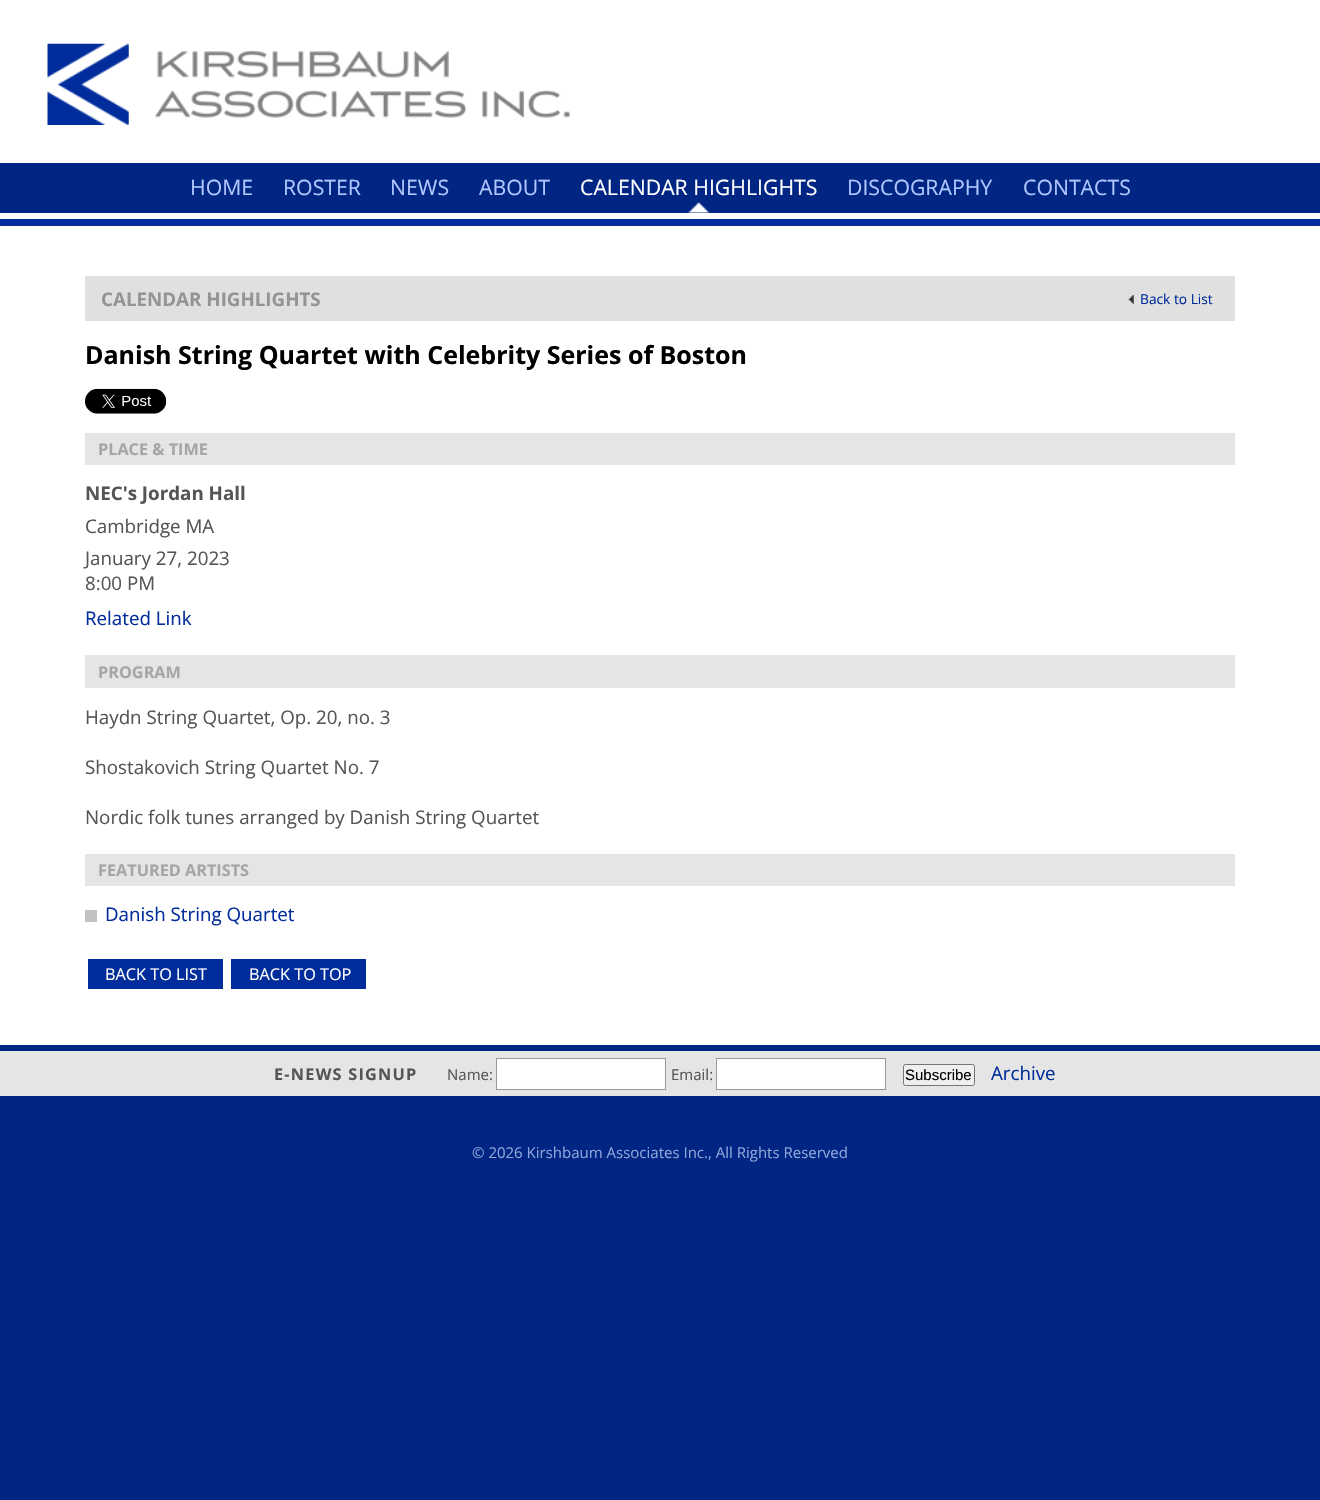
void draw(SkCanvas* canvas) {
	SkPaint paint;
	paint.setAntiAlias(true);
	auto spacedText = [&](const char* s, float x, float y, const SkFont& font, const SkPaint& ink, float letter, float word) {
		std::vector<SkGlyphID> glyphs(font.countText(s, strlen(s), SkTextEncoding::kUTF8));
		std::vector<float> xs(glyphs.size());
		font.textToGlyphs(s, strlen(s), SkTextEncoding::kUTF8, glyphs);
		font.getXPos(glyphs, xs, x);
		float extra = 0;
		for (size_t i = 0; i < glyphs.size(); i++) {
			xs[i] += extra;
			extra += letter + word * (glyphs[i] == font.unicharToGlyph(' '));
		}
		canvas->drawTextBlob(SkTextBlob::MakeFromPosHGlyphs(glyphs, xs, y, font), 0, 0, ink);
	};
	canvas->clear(0xff002583);
	paint.setColor(0xffffffff);
	canvas->drawRect(SkRect::MakeXYWH(0, 0, 1320, 1045), paint);
	canvas->drawImageRect(SkImages::DeferredFromEncodedData(SkData::MakeFromFileName("img1.png")), SkRect::MakeXYWH(47, 43, 523, 82), SkSamplingOptions());
	paint.setColor(0xff002583);
	canvas->drawRect(SkRect::MakeXYWH(0, 163, 1320, 50), paint);
	SkFont f1(fontMgr->matchFamilyStyle("Open Sans", SkFontStyle::Normal()), 21.25);
	f1.setSubpixel(true);
	paint.setColor(0xffafc6ff);
	canvas->drawString("HOME", 190, 195, f1, paint);
	canvas->drawString("ROSTER", 283, 195, f1, paint);
	canvas->drawString("NEWS", 390, 195, f1, paint);
	canvas->drawString("ABOUT", 479, 195, f1, paint);
	paint.setColor(0xffffffff);
	canvas->drawString("CALENDAR HIGHLIGHTS", 580, 195, f1, paint);
	paint.setColor(0xffafc6ff);
	canvas->drawString("DISCOGRAPHY", 847, 195, f1, paint);
	canvas->drawString("CONTACTS", 1023, 195, f1, paint);
	canvas->drawImageRect(SkImages::DeferredFromEncodedData(SkData::MakeFromFileName("img2.png")), SkRect::MakeXYWH(687, 202, 23, 11), SkSamplingOptions());
	paint.setColor(0xff002c9c);
	canvas->drawRect(SkRect::MakeXYWH(0, 219, 1320, 7), paint);
	paint.setColor(0xffe0e0e0);
	canvas->drawRect(SkRect::MakeXYWH(85, 276, 1150, 45), paint);
	SkFont f2(fontMgr->matchFamilyStyle("Open Sans", SkFontStyle::Bold()), 18.75);
	f2.setSubpixel(true);
	paint.setColor(0xff949494);
	canvas->drawString("CALENDAR HIGHLIGHTS", 101, 306, f2, paint);
	canvas->drawImageRect(SkImages::DeferredFromEncodedData(SkData::MakeFromFileName("img3.png")), SkRect::MakeXYWH(1128, 295, 6, 9), SkSamplingOptions());
	SkFont f3(fontMgr->matchFamilyStyle("Open Sans", SkFontStyle::Normal()), 13.75);
	f3.setSubpixel(true);
	paint.setColor(0xff002c9c);
	canvas->drawString("Back to List", 1140, 304, f3, paint);
	SkFont f4(fontMgr->matchFamilyStyle("Open Sans", SkFontStyle::Bold()), 25);
	f4.setSubpixel(true);
	paint.setColor(0xff000000);
	canvas->drawString("Danish String Quartet with Celebrity Series of Boston", 85, 364, f4, paint);
	canvas->drawImageRect(SkImages::DeferredFromEncodedData(SkData::MakeFromFileName("img4.png")), SkRect::MakeXYWH(85, 388, 82, 26), SkSamplingOptions());
	paint.setColor(0xffe5e5e5);
	canvas->drawRect(SkRect::MakeXYWH(85, 433, 1150, 32), paint);
	SkFont f5(fontMgr->matchFamilyStyle("Open Sans", SkFontStyle::Bold()), 16.25);
	f5.setSubpixel(true);
	paint.setColor(0xffa6a6a6);
	canvas->drawString("PLACE & TIME", 98, 455, f5, paint);
	paint.setColor(0xff555555);
	canvas->drawString("NEC's Jordan Hall", 85, 500, f2, paint);
	SkFont f6(fontMgr->matchFamilyStyle("Open Sans", SkFontStyle::Normal()), 18.75);
	f6.setSubpixel(true);
	canvas->drawString("Cambridge MA", 85, 533, f6, paint);
	canvas->drawString("January 27, 2023", 85, 565, f6, paint);
	canvas->drawString("8:00 PM", 85, 590, f6, paint);
	paint.setColor(0xff002c9c);
	canvas->drawString("Related Link", 85, 625, f6, paint);
	paint.setColor(0xffe5e5e5);
	canvas->drawRect(SkRect::MakeXYWH(85, 655, 1150, 33), paint);
	paint.setColor(0xffa6a6a6);
	canvas->drawString("PROGRAM", 98, 678, f5, paint);
	paint.setColor(0xff555555);
	canvas->drawString("Haydn String Quartet, Op. 20, no. 3", 85, 724, f6, paint);
	canvas->drawString("Shostakovich String Quartet No. 7", 85, 774, f6, paint);
	canvas->drawString("Nordic folk tunes arranged by Danish String Quartet", 85, 824, f6, paint);
	paint.setColor(0xffe5e5e5);
	canvas->drawRect(SkRect::MakeXYWH(85, 854, 1150, 32), paint);
	paint.setColor(0xffa6a6a6);
	canvas->drawString("FEATURED ARTISTS", 98, 876, f5, paint);
	paint.setColor(0xffc2c2c2);
	canvas->drawRect(SkRect::MakeXYWH(85, 910, 12, 12), paint);
	paint.setColor(0xff002c9c);
	canvas->drawString("Danish String Quartet", 105, 921, f6, paint);
	canvas->drawRect(SkRect::MakeXYWH(88, 959, 135, 30), paint);
	SkFont f7(fontMgr->matchFamilyStyle("Open Sans", SkFontStyle::Normal()), 16.25);
	f7.setSubpixel(true);
	paint.setColor(0xffffffff);
	canvas->drawString("BACK TO LIST", 105, 980, f7, paint);
	paint.setColor(0xff002c9c);
	canvas->drawRect(SkRect::MakeXYWH(231, 959, 135, 30), paint);
	paint.setColor(0xffffffff);
	canvas->drawString("BACK TO TOP", 249, 980, f7, paint);
	paint.setColor(0xffe5e5e5);
	canvas->drawRect(SkRect::MakeXYWH(0, 1051, 1320, 45), paint);
	paint.setColor(0xff555555);
	spacedText("E-NEWS SIGNUP", 274, 1080, f5, paint, 1.25, 0);
	SkFont f8(fontMgr->matchFamilyStyle("Open Sans", SkFontStyle::Normal()), 15);
	f8.setSubpixel(true);
	canvas->drawString("Name:", 447, 1080, f8, paint);
	paint.setColor(0xffffffff);
	canvas->drawRect(SkRect::MakeXYWH(496.5, 1058.5, 169, 31), paint);
	paint.setStroke(true);
	paint.setStrokeWidth(1);
	paint.setColor(0xff999999);
	canvas->drawRect(SkRect::MakeXYWH(496.5, 1058.5, 169, 31), paint);
	paint.setStroke(false);
	paint.setColor(0xff555555);
	canvas->drawString("Email:", 671, 1080, f8, paint);
	paint.setColor(0xffffffff);
	canvas->drawRect(SkRect::MakeXYWH(716.5, 1058.5, 169, 31), paint);
	paint.setStroke(true);
	paint.setColor(0xff999999);
	canvas->drawRect(SkRect::MakeXYWH(716.5, 1058.5, 169, 31), paint);
	paint.setStroke(false);
	paint.setColor(0xffefefef);
	canvas->drawRoundRect(SkRect::MakeXYWH(903.5, 1064.5, 71, 21), 2, 2, paint);
	paint.setStroke(true);
	paint.setColor(0xff767676);
	canvas->drawRoundRect(SkRect::MakeXYWH(903.5, 1064.5, 71, 21), 2, 2, paint);
	SkFont f9(fontMgr->matchFamilyStyle("Liberation Sans", SkFontStyle::Normal()), 15);
	f9.setSubpixel(true);
	paint.setStroke(false);
	paint.setColor(0xff000000);
	canvas->drawString("Subscribe", 905, 1080, f9, paint);
	paint.setColor(0xff002c9c);
	canvas->drawString("Archive", 991, 1080, f6, paint);
	paint.setColor(0xff90a5da);
	canvas->drawString("© 2026 Kirshbaum Associates Inc., All Rights Reserved", 472, 1158, f8, paint);
}
